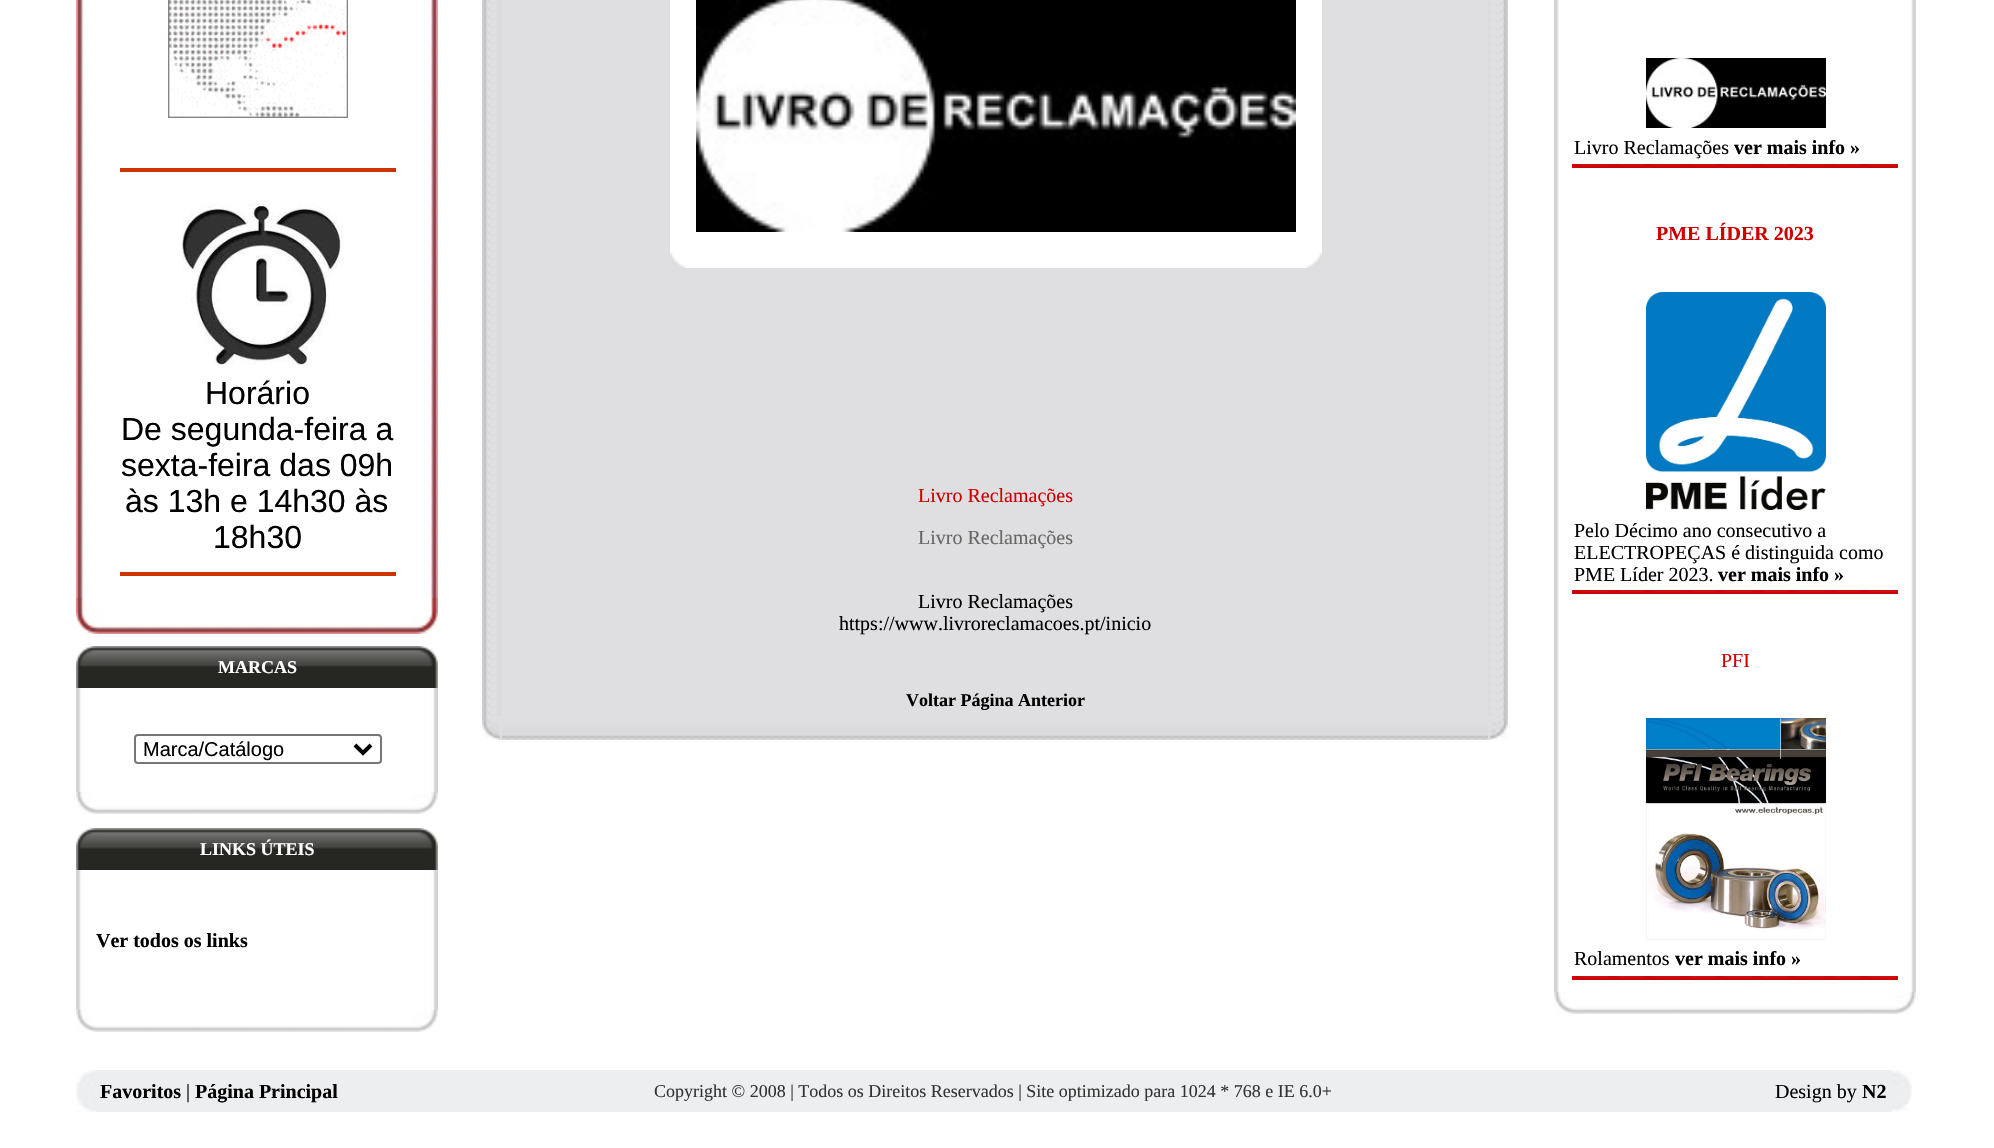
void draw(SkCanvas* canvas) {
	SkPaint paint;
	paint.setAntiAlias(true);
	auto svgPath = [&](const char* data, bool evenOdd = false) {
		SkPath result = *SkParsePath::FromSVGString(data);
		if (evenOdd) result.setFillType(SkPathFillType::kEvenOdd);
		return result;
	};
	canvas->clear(0xffffffff);
	canvas->drawImageRect(SkImages::DeferredFromEncodedData(SkData::MakeFromFileName("img1.png")), SkRect::MakeXYWH(76, 0, 10, 598), SkSamplingOptions());
	canvas->drawImageRect(SkImages::DeferredFromEncodedData(SkData::MakeFromFileName("img2.png")), SkRect::MakeXYWH(168, 0, 180, 118), SkSamplingOptions());
	paint.setColor(0xffcc3300);
	canvas->drawRect(SkRect::MakeXYWH(120, 168, 276, 4), paint);
	canvas->drawImageRect(SkImages::DeferredFromEncodedData(SkData::MakeFromFileName("img3.png")), SkRect::MakeXYWH(182, 203, 162, 162), SkSamplingOptions());
	SkFont f1(fontMgr->matchFamilyStyle("Liberation Sans", SkFontStyle::Normal()), 32);
	f1.setSubpixel(true);
	paint.setColor(0xff000000);
	canvas->drawString("Horário", 205, 404, f1, paint);
	canvas->drawString("De segunda-feira a", 121, 440, f1, paint);
	canvas->drawString("sexta-feira das 09h", 121, 476, f1, paint);
	canvas->drawString("às 13h e 14h30 às", 125, 512, f1, paint);
	canvas->drawString("18h30", 213, 548, f1, paint);
	paint.setColor(0xffcc3300);
	canvas->drawRect(SkRect::MakeXYWH(120, 572, 276, 4), paint);
	canvas->drawImageRect(SkImages::DeferredFromEncodedData(SkData::MakeFromFileName("img4.png")), SkRect::MakeXYWH(424, 0, 14, 598), SkSamplingOptions());
	canvas->drawImageRect(SkImages::DeferredFromEncodedData(SkData::MakeFromFileName("img5.png")), SkRect::MakeXYWH(76, 598, 362, 36), SkSamplingOptions());
	canvas->drawImageRect(SkImages::DeferredFromEncodedData(SkData::MakeFromFileName("img6.png")), SkRect::MakeXYWH(76, 646, 362, 42), SkSamplingOptions());
	SkFont f2(fontMgr->matchFamilyStyle("Liberation Serif", SkFontStyle::Bold()), 18);
	f2.setSubpixel(true);
	paint.setColor(0xffffffff);
	canvas->drawString("MARCAS", 218, 673, f2, paint);
	canvas->drawImageRect(SkImages::DeferredFromEncodedData(SkData::MakeFromFileName("img7.png")), SkRect::MakeXYWH(76, 688, 5, 104), SkSamplingOptions());
	paint.setStroke(true);
	paint.setStrokeWidth(2);
	paint.setColor(0xff767676);
	canvas->drawRoundRect(SkRect::MakeXYWH(135, 735, 246, 28), 3, 3, paint);
	paint.setStrokeWidth(4);
	paint.setColor(0xff000000);
	canvas->drawPath(svgPath("M355 745L363 753L371 745"), paint);
	SkFont f3(fontMgr->matchFamilyStyle("Liberation Sans", SkFontStyle::Normal()), 20);
	f3.setSubpixel(true);
	paint.setStroke(false);
	canvas->drawString("Marca/Catálogo", 143, 756, f3, paint);
	canvas->drawImageRect(SkImages::DeferredFromEncodedData(SkData::MakeFromFileName("img8.png")), SkRect::MakeXYWH(424, 688, 14, 104), SkSamplingOptions());
	canvas->drawImageRect(SkImages::DeferredFromEncodedData(SkData::MakeFromFileName("img9.png")), SkRect::MakeXYWH(76, 792, 362, 22), SkSamplingOptions());
	canvas->drawImageRect(SkImages::DeferredFromEncodedData(SkData::MakeFromFileName("img6.png")), SkRect::MakeXYWH(76, 828, 362, 42), SkSamplingOptions());
	paint.setColor(0xffffffff);
	canvas->drawString("LINKS ÚTEIS", 200, 855, f2, paint);
	canvas->drawImageRect(SkImages::DeferredFromEncodedData(SkData::MakeFromFileName("img10.png")), SkRect::MakeXYWH(76, 870, 5, 140), SkSamplingOptions());
	SkFont f4(fontMgr->matchFamilyStyle("Liberation Serif", SkFontStyle::Bold()), 20);
	f4.setSubpixel(true);
	paint.setColor(0xff000000);
	canvas->drawString("Ver todos os links", 96, 947, f4, paint);
	canvas->drawImageRect(SkImages::DeferredFromEncodedData(SkData::MakeFromFileName("img11.png")), SkRect::MakeXYWH(424, 870, 14, 140), SkSamplingOptions());
	canvas->drawImageRect(SkImages::DeferredFromEncodedData(SkData::MakeFromFileName("img9.png")), SkRect::MakeXYWH(76, 1010, 362, 22), SkSamplingOptions());
	paint.setColor(0xffdbdbdd);
	canvas->drawRect(SkRect::MakeXYWH(497, 0, 5, 716), paint);
	canvas->drawImageRect(SkImages::DeferredFromEncodedData(SkData::MakeFromFileName("img12.png")), SkRect::MakeXYWH(482, 0, 15, 716), SkSamplingOptions());
	paint.setColor(0xffdfdfe1);
	canvas->drawRect(SkRect::MakeXYWH(502, 0, 986, 716), paint);
	paint.setColor(0xffffffff);
	canvas->drawRect(SkRect::MakeXYWH(670, 0, 652, 268), paint);
	canvas->drawImageRect(SkImages::DeferredFromEncodedData(SkData::MakeFromFileName("img13.png")), SkRect::MakeXYWH(696, 0, 600, 232), SkSamplingOptions());
	canvas->drawImageRect(SkImages::DeferredFromEncodedData(SkData::MakeFromFileName("img14.png")), SkRect::MakeXYWH(670, 251, 17, 17), SkSamplingOptions());
	canvas->drawImageRect(SkImages::DeferredFromEncodedData(SkData::MakeFromFileName("img15.png")), SkRect::MakeXYWH(1305, 251, 17, 17), SkSamplingOptions());
	SkFont f5(fontMgr->matchFamilyStyle("Liberation Serif", SkFontStyle::Normal()), 20);
	f5.setSubpixel(true);
	paint.setColor(0xffcc0000);
	canvas->drawString("Livro Reclamações", 918, 502, f5, paint);
	paint.setColor(0xff666666);
	canvas->drawString("Livro Reclamações", 918, 544, f5, paint);
	paint.setColor(0xff000000);
	canvas->drawString("Livro Reclamações", 918, 608, f5, paint);
	canvas->drawString("https://www.livroreclamacoes.pt/inicio", 839, 630, f5, paint);
	canvas->drawString("Voltar Página Anterior", 906, 706, f2, paint);
	paint.setColor(0xffdbdbdd);
	canvas->drawRect(SkRect::MakeXYWH(1488, 0, 2, 716), paint);
	canvas->drawImageRect(SkImages::DeferredFromEncodedData(SkData::MakeFromFileName("img16.png")), SkRect::MakeXYWH(1490, 0, 18, 716), SkSamplingOptions());
	canvas->drawImageRect(SkImages::DeferredFromEncodedData(SkData::MakeFromFileName("img17.png")), SkRect::MakeXYWH(482, 716, 20, 24), SkSamplingOptions());
	canvas->drawImageRect(SkImages::DeferredFromEncodedData(SkData::MakeFromFileName("img18.png")), SkRect::MakeXYWH(482, 723, 18, 17), SkSamplingOptions());
	canvas->drawImageRect(SkImages::DeferredFromEncodedData(SkData::MakeFromFileName("img19.png")), SkRect::MakeXYWH(502, 716, 986, 24), SkSamplingOptions());
	canvas->drawImageRect(SkImages::DeferredFromEncodedData(SkData::MakeFromFileName("img20.png")), SkRect::MakeXYWH(1488, 716, 20, 24), SkSamplingOptions());
	canvas->drawImageRect(SkImages::DeferredFromEncodedData(SkData::MakeFromFileName("img21.png")), SkRect::MakeXYWH(1490, 722, 18, 18), SkSamplingOptions());
	canvas->drawImageRect(SkImages::DeferredFromEncodedData(SkData::MakeFromFileName("img22.png")), SkRect::MakeXYWH(1554, 0, 5, 992), SkSamplingOptions());
	canvas->drawImageRect(SkImages::DeferredFromEncodedData(SkData::MakeFromFileName("img23.png")), SkRect::MakeXYWH(1646, 58, 180, 70), SkSamplingOptions());
	paint.setColor(0xff000000);
	canvas->drawString("Livro Reclamações", 1574, 154, f5, paint);
	canvas->drawString("ver mais info »", 1734, 154, f4, paint);
	canvas->drawImageRect(SkImages::DeferredFromEncodedData(SkData::MakeFromFileName("img24.png")), SkRect::MakeXYWH(1572, 164, 326, 4), SkSamplingOptions());
	paint.setColor(0xffcc0000);
	canvas->drawString("PME LÍDER 2023", 1656, 240, f4, paint);
	canvas->drawImageRect(SkImages::DeferredFromEncodedData(SkData::MakeFromFileName("img25.png")), SkRect::MakeXYWH(1646, 292, 180, 218), SkSamplingOptions());
	paint.setColor(0xff000000);
	canvas->drawString("Pelo Décimo ano consecutivo a", 1574, 537, f5, paint);
	canvas->drawString("ELECTROPEÇAS é distinguida como", 1574, 559, f5, paint);
	canvas->drawString("PME Líder 2023.", 1574, 581, f5, paint);
	canvas->drawString("ver mais info »", 1718, 581, f4, paint);
	canvas->drawImageRect(SkImages::DeferredFromEncodedData(SkData::MakeFromFileName("img24.png")), SkRect::MakeXYWH(1572, 590, 326, 4), SkSamplingOptions());
	paint.setColor(0xffcc0000);
	canvas->drawString("PFI", 1721, 667, f5, paint);
	canvas->drawImageRect(SkImages::DeferredFromEncodedData(SkData::MakeFromFileName("img26.png")), SkRect::MakeXYWH(1646, 718, 180, 222), SkSamplingOptions());
	paint.setColor(0xff000000);
	canvas->drawString("Rolamentos", 1574, 965, f5, paint);
	canvas->drawString("ver mais info »", 1675, 965, f4, paint);
	canvas->drawImageRect(SkImages::DeferredFromEncodedData(SkData::MakeFromFileName("img24.png")), SkRect::MakeXYWH(1572, 976, 326, 4), SkSamplingOptions());
	canvas->drawImageRect(SkImages::DeferredFromEncodedData(SkData::MakeFromFileName("img27.png")), SkRect::MakeXYWH(1902, 0, 14, 992), SkSamplingOptions());
	canvas->drawImageRect(SkImages::DeferredFromEncodedData(SkData::MakeFromFileName("img9.png")), SkRect::MakeXYWH(1554, 992, 362, 22), SkSamplingOptions());
	paint.setColor(0xffedeef0);
	canvas->drawRect(SkRect::MakeXYWH(96, 1070, 1796, 42), paint);
	canvas->drawImageRect(SkImages::DeferredFromEncodedData(SkData::MakeFromFileName("img28.png")), SkRect::MakeXYWH(76, 1070, 20, 42), SkSamplingOptions());
	canvas->drawImageRect(SkImages::DeferredFromEncodedData(SkData::MakeFromFileName("img29.png")), SkRect::MakeXYWH(1892, 1070, 20, 42), SkSamplingOptions());
	paint.setColor(0xff000000);
	canvas->drawString("Favoritos", 100, 1098, f4, paint);
	canvas->drawString("|", 186, 1098, f5, paint);
	canvas->drawString("Página Principal", 195, 1098, f4, paint);
	SkFont f6(fontMgr->matchFamilyStyle("Liberation Serif", SkFontStyle::Normal()), 18);
	f6.setSubpixel(true);
	paint.setColor(0xff333333);
	canvas->drawString("Copyright © 2008 | Todos os Direitos Reservados | Site optimizado para 1024 * 768 e IE 6.0+", 654, 1097, f6, paint);
	paint.setColor(0xff000000);
	canvas->drawString("Design by", 1775, 1098, f5, paint);
	canvas->drawString("N2", 1862, 1098, f4, paint);
}
